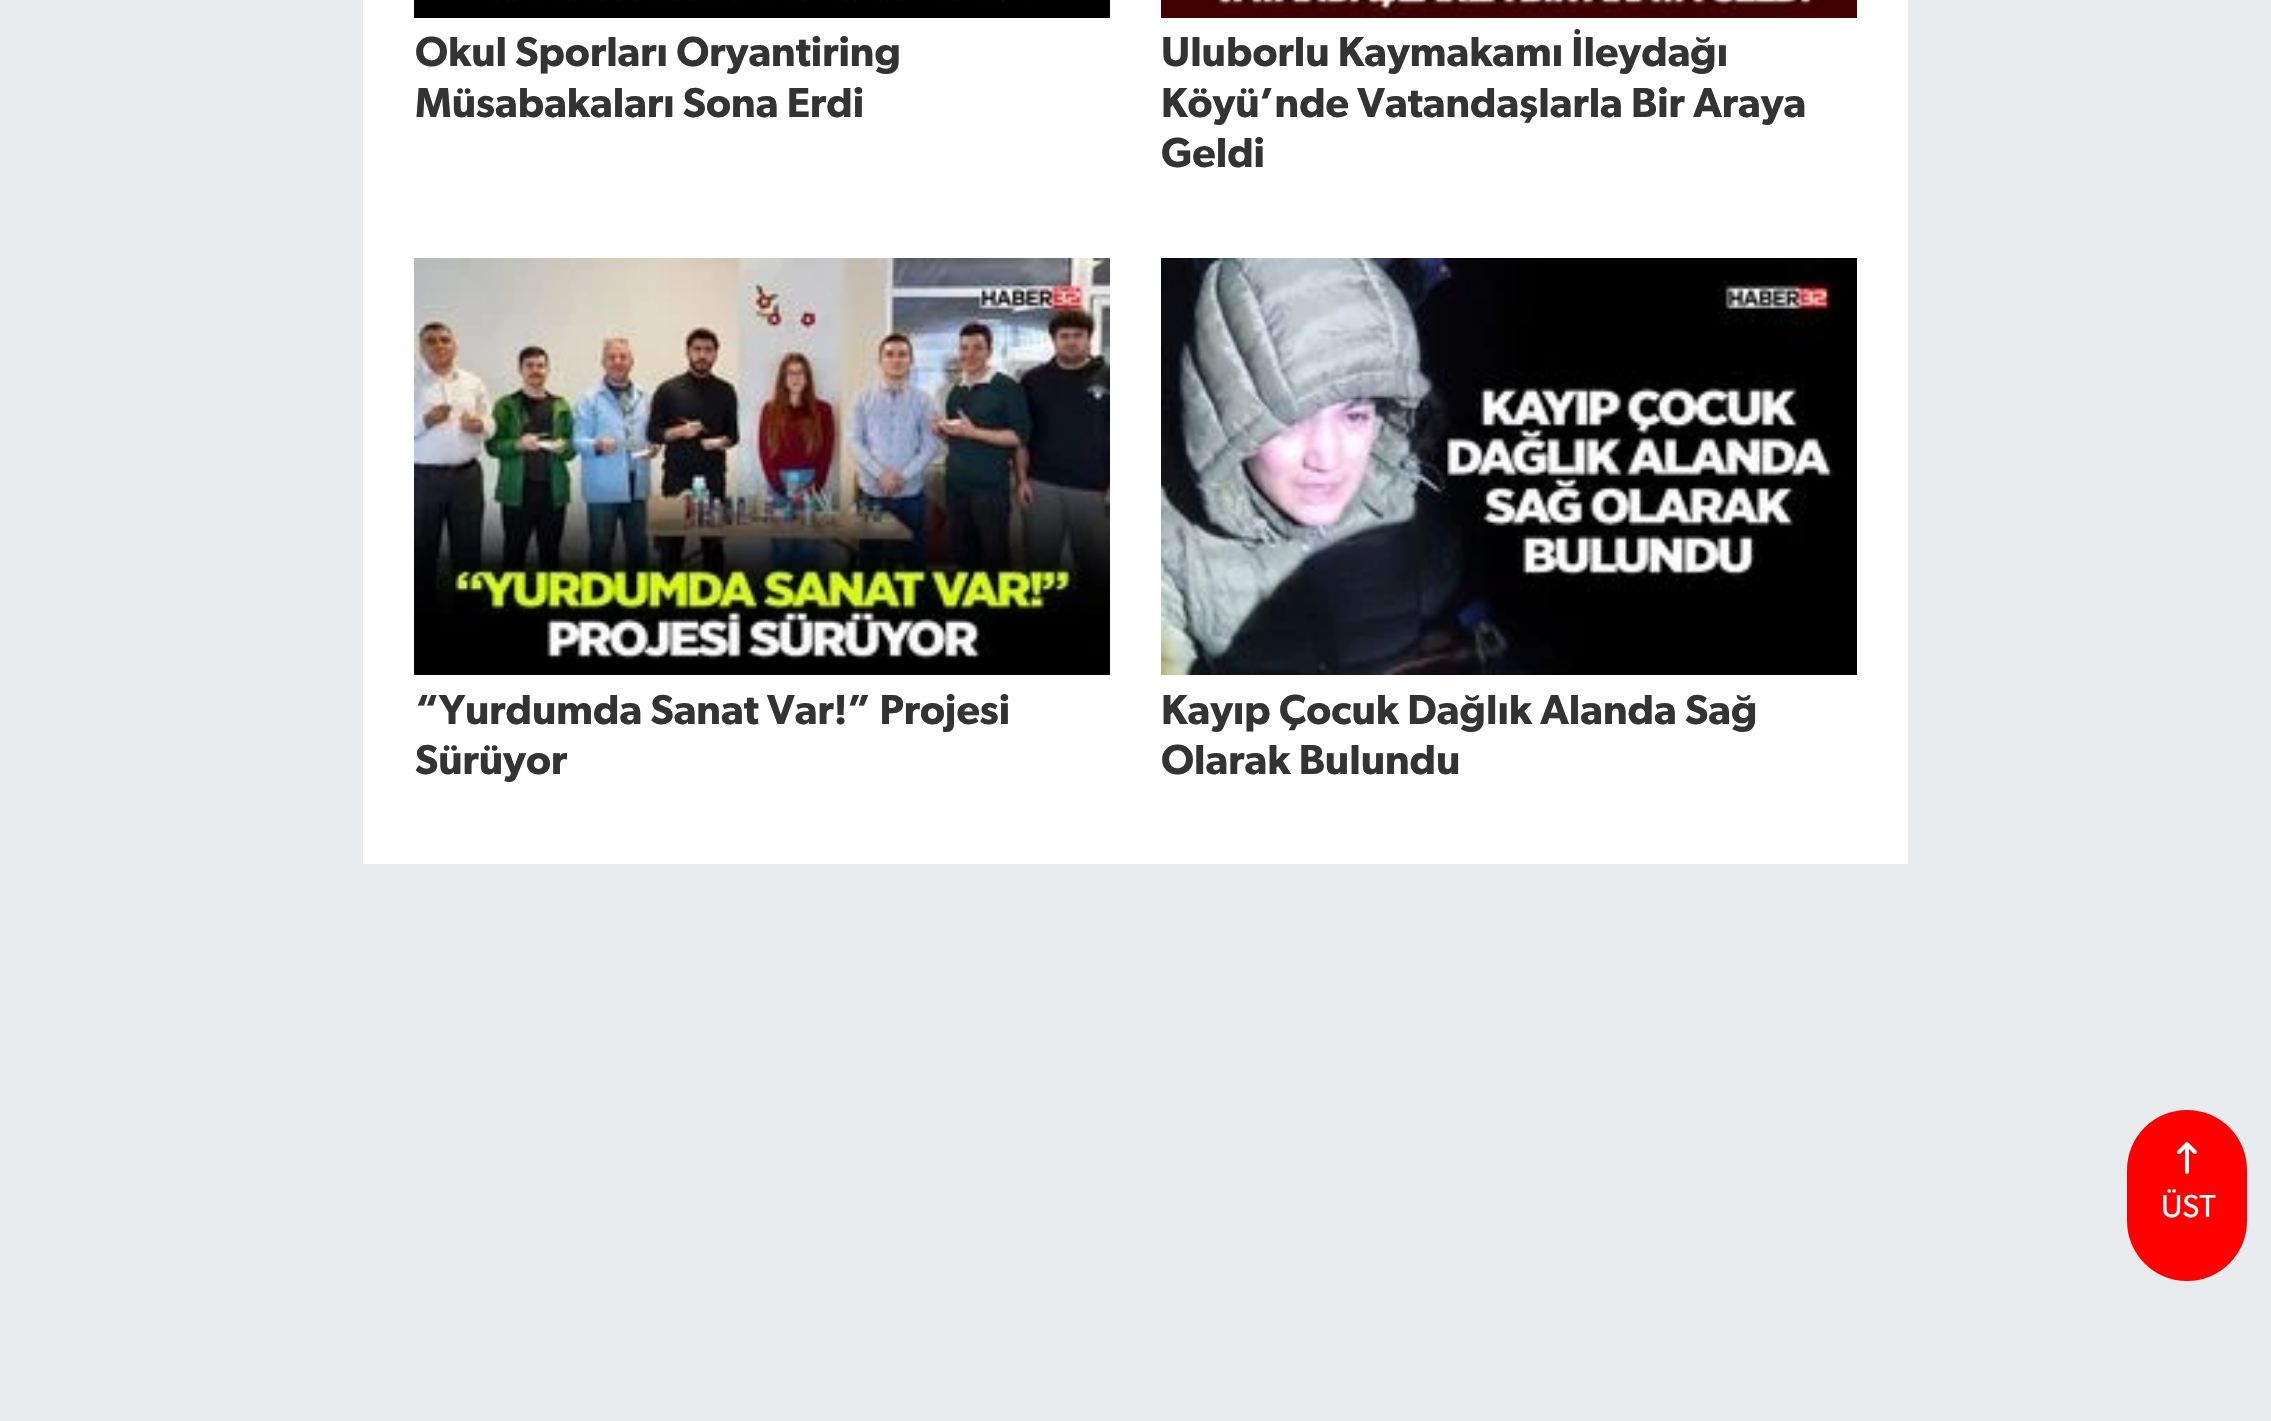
void draw(SkCanvas* canvas) {
	SkPaint paint;
	paint.setAntiAlias(true);
	canvas->clear(0xffe9ecef);
	paint.setColor(0xffffffff);
	canvas->drawRect(SkRect::MakeXYWH(363, 0, 1545, 864), paint);
	canvas->drawImageRect(SkImages::DeferredFromEncodedData(SkData::MakeFromFileName("img1.png")), SkRect::MakeXYWH(414, 0, 696, 18), SkSamplingOptions());
	SkFont f1(fontMgr->matchFamilyStyle("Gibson", SkFontStyle(600, SkFontStyle::kNormal_Width, SkFontStyle::kUpright_Slant)), 42);
	f1.setSubpixel(true);
	paint.setColor(0xff333333);
	canvas->drawString("Okul Sporları Oryantiring", 415, 66, f1, paint);
	canvas->drawString("Müsabakaları Sona Erdi", 415, 117, f1, paint);
	canvas->drawImageRect(SkImages::DeferredFromEncodedData(SkData::MakeFromFileName("img2.png")), SkRect::MakeXYWH(1161, 0, 696, 18), SkSamplingOptions());
	canvas->drawString("Uluborlu Kaymakamı İleydağı", 1161, 66, f1, paint);
	canvas->drawString("Köyü’nde Vatandaşlarla Bir Araya", 1161, 117, f1, paint);
	canvas->drawString("Geldi", 1161, 167, f1, paint);
	canvas->drawImageRect(SkImages::DeferredFromEncodedData(SkData::MakeFromFileName("img3.png")), SkRect::MakeXYWH(414, 258, 696, 417), SkSamplingOptions());
	canvas->drawString("“Yurdumda Sanat Var!” Projesi", 415, 724, f1, paint);
	canvas->drawString("Sürüyor", 415, 774, f1, paint);
	canvas->drawImageRect(SkImages::DeferredFromEncodedData(SkData::MakeFromFileName("img4.png")), SkRect::MakeXYWH(1161, 258, 696, 417), SkSamplingOptions());
	canvas->drawString("Kayıp Çocuk Dağlık Alanda Sağ", 1161, 724, f1, paint);
	canvas->drawString("Olarak Bulundu", 1161, 774, f1, paint);
	paint.setColor(0xffff0000);
	canvas->drawRoundRect(SkRect::MakeXYWH(2127, 1110, 120, 171), 60, 60, paint);
	canvas->drawImageRect(SkImages::DeferredFromEncodedData(SkData::MakeFromFileName("img5.png")), SkRect::MakeXYWH(2177, 1142, 20, 32), SkSamplingOptions());
	SkFont f2(fontMgr->matchFamilyStyle("Gibson", SkFontStyle::Normal()), 32);
	f2.setSubpixel(true);
	paint.setColor(0xffffffff);
	canvas->drawString("ÜST", 2161, 1217, f2, paint);
}
